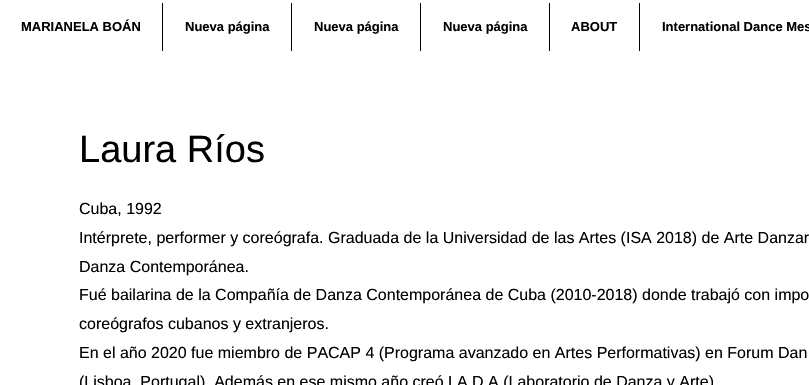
void draw(SkCanvas* canvas) {
	SkPaint paint;
	paint.setAntiAlias(true);
	canvas->clear(0xffffffff);
	SkFont f1(fontMgr->matchFamilyStyle("Liberation Sans", SkFontStyle::Bold()), 13);
	f1.setSubpixel(true);
	paint.setColor(0xff000000);
	canvas->drawString("MARIANELA BOÁN", 21, 31, f1, paint);
	canvas->drawRect(SkRect::MakeXYWH(162, 3, 1, 48), paint);
	canvas->drawString("Nueva página", 185, 31, f1, paint);
	canvas->drawRect(SkRect::MakeXYWH(291, 3, 1, 48), paint);
	canvas->drawString("Nueva página", 314, 31, f1, paint);
	canvas->drawRect(SkRect::MakeXYWH(420, 3, 1, 48), paint);
	canvas->drawString("Nueva página", 443, 31, f1, paint);
	canvas->drawRect(SkRect::MakeXYWH(549, 3, 1, 48), paint);
	canvas->drawString("ABOUT", 571, 31, f1, paint);
	canvas->drawRect(SkRect::MakeXYWH(639, 3, 1, 48), paint);
	canvas->drawString("International Dance Mes", 662, 31, f1, paint);
	SkFont f2(fontMgr->matchFamilyStyle("Liberation Sans", SkFontStyle::Normal()), 38);
	f2.setSubpixel(true);
	canvas->drawString("Laura Ríos", 79, 162, f2, paint);
	SkFont f3(fontMgr->matchFamilyStyle("Liberation Sans", SkFontStyle::Normal()), 16);
	f3.setSubpixel(true);
	canvas->drawString("Cuba, 1992", 79, 214, f3, paint);
	canvas->drawString("Intérprete, performer y coreógrafa. Graduada de la Universidad de las Artes (ISA 2018) de Arte Danzar", 79, 243, f3, paint);
	canvas->drawString("Danza Contemporánea.", 79, 272, f3, paint);
	canvas->drawString("Fué bailarina de la Compañía de Danza Contemporánea de Cuba (2010-2018) donde trabajó con impo", 79, 300, f3, paint);
	canvas->drawString("coreógrafos cubanos y extranjeros.", 79, 329, f3, paint);
	canvas->drawString("En el año 2020 fue miembro de PACAP 4 (Programa avanzado en Artes Performativas) en Forum Dan", 79, 358, f3, paint);
	canvas->drawString("(Lisboa, Portugal). Además en ese mismo año creó LA.D.A (Laboratorio de Danza y Arte)", 79, 387, f3, paint);
}
